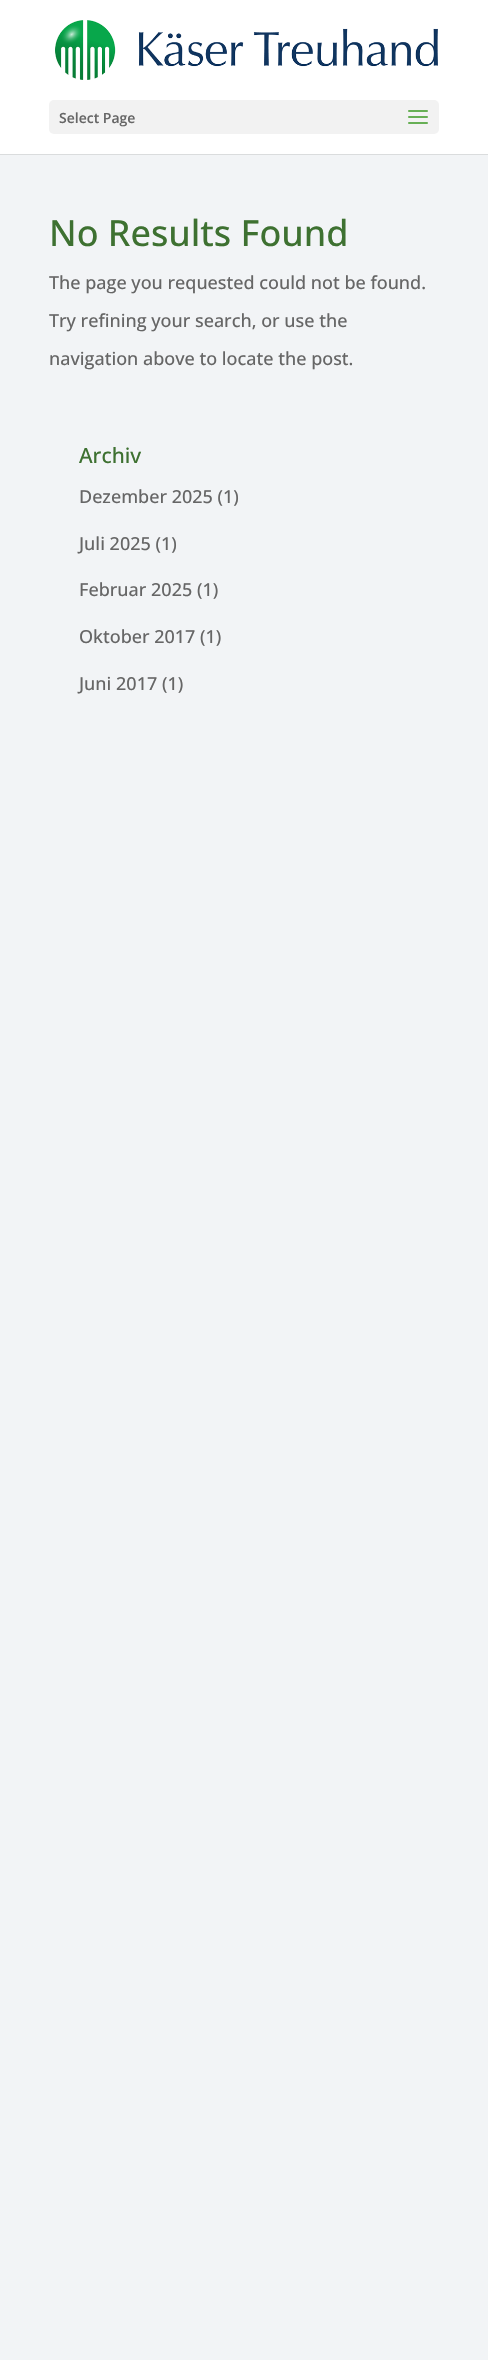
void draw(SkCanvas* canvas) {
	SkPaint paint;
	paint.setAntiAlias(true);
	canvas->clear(0xfff2f4f6);
	paint.setColor(0xffdadcdd);
	canvas->drawRect(SkRect::MakeXYWH(0, 154, 488, 1), paint);
	paint.setColor(0xffffffff);
	canvas->drawRect(SkRect::MakeXYWH(0, 0, 488, 154), paint);
	canvas->drawImageRect(SkImages::DeferredFromEncodedData(SkData::MakeFromFileName("img1.png")), SkRect::MakeXYWH(55, 20, 383, 60), SkSamplingOptions());
	paint.setColor(0xfff2f2f2);
	canvas->drawRoundRect(SkRect::MakeXYWH(49, 100, 390, 34), 5, 5, paint);
	SkFont f1(fontMgr->matchFamilyStyle("Open Sans", SkFontStyle(600, SkFontStyle::kNormal_Width, SkFontStyle::kUpright_Slant)), 14);
	f1.setSubpixel(true);
	paint.setColor(0xff666666);
	canvas->drawString("Select Page", 59, 123, f1, paint);
	canvas->drawImageRect(SkImages::DeferredFromEncodedData(SkData::MakeFromFileName("img2.png")), SkRect::MakeXYWH(408, 110, 20, 14), SkSamplingOptions());
	SkFont f2(fontMgr->matchFamilyStyle("Open Sans", SkFontStyle(500, SkFontStyle::kNormal_Width, SkFontStyle::kUpright_Slant)), 36);
	f2.setSubpixel(true);
	paint.setColor(0xff3e7131);
	canvas->drawString("No Results Found", 49, 246, f2, paint);
	SkFont f3(fontMgr->matchFamilyStyle("Open Sans", SkFontStyle(500, SkFontStyle::kNormal_Width, SkFontStyle::kUpright_Slant)), 18);
	f3.setSubpixel(true);
	paint.setColor(0xff666666);
	canvas->drawString("The page you requested could not be found.", 49, 289, f3, paint);
	canvas->drawString("Try refining your search, or use the", 49, 327, f3, paint);
	canvas->drawString("navigation above to locate the post.", 49, 365, f3, paint);
	SkFont f4(fontMgr->matchFamilyStyle("Open Sans", SkFontStyle(500, SkFontStyle::kNormal_Width, SkFontStyle::kUpright_Slant)), 21);
	f4.setSubpixel(true);
	paint.setColor(0xff3e7131);
	canvas->drawString("Archiv", 79, 463, f4, paint);
	paint.setColor(0xff666666);
	canvas->drawString("Dezember 2025 (1)", 79, 503, f3, paint);
	canvas->drawString("Juli 2025 (1)", 79, 550, f3, paint);
	canvas->drawString("Februar 2025 (1)", 79, 596, f3, paint);
	canvas->drawString("Oktober 2017 (1)", 79, 643, f3, paint);
	canvas->drawString("Juni 2017 (1)", 79, 690, f3, paint);
}
